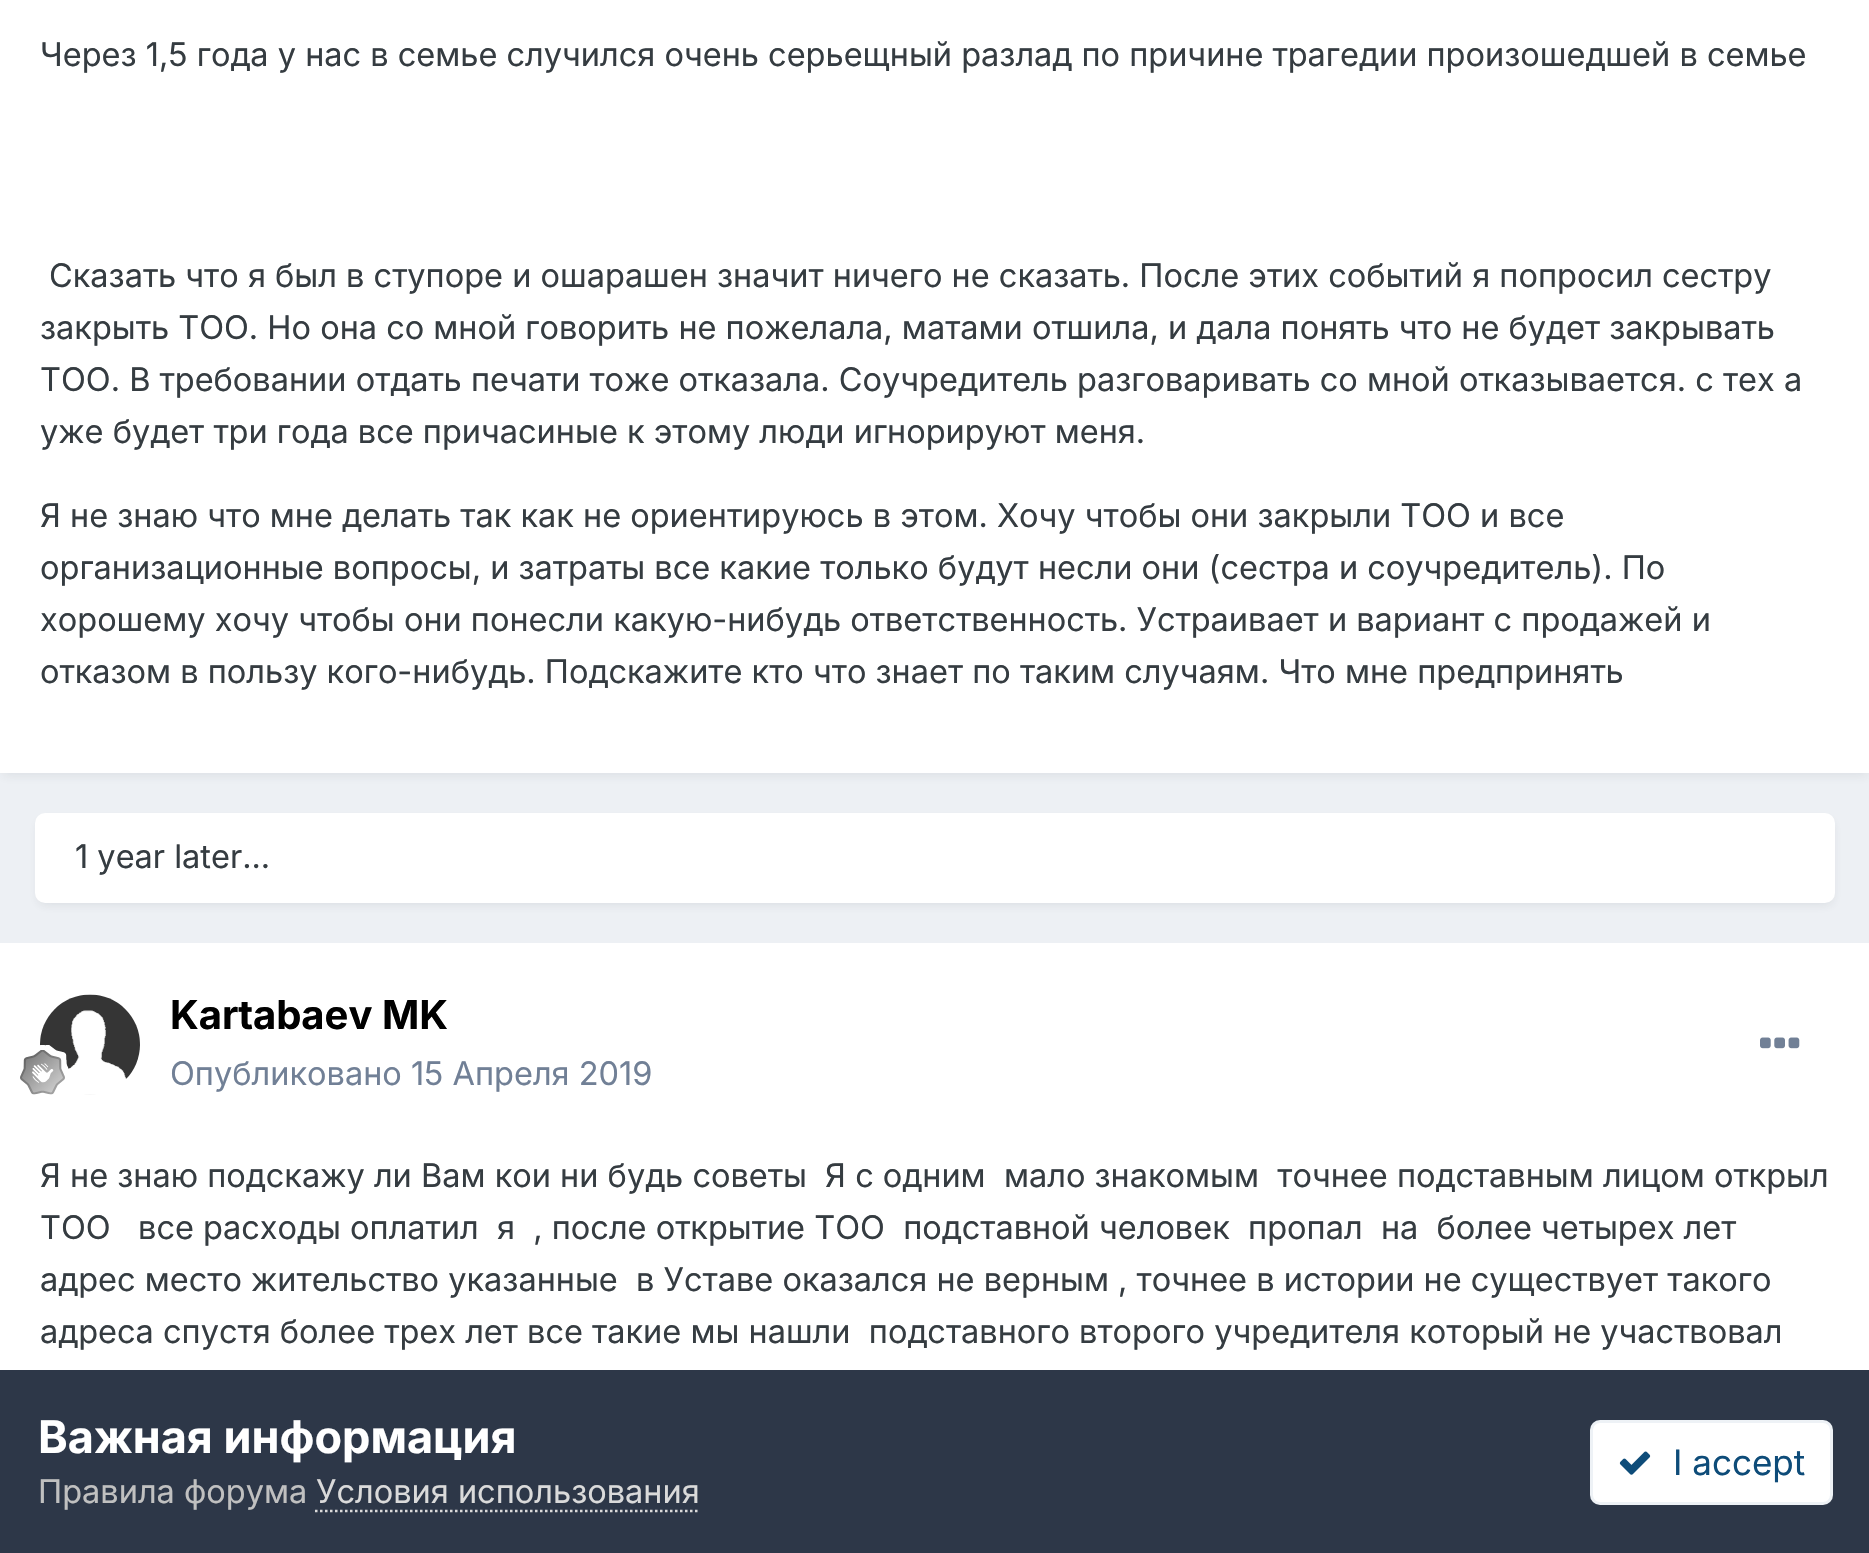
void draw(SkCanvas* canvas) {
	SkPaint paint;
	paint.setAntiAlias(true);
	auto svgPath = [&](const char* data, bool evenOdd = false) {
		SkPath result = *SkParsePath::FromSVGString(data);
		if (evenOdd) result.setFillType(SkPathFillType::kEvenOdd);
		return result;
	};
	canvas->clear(0xffedf0f4);
	paint.setColor(0x1a2d3748);
	paint.setMaskFilter(SkMaskFilter::MakeBlur(kNormal_SkBlurStyle, 5));
	canvas->drawRect(SkRect::MakeXYWH(3, -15, 1865, 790), paint);
	paint.setMaskFilter(nullptr);
	paint.setColor(0xffffffff);
	canvas->drawRect(SkRect::MakeXYWH(0, 0, 1869, 773), paint);
	SkFont f1(fontMgr->matchFamilyStyle("Inter", SkFontStyle::Normal()), 32.5);
	f1.setSubpixel(true);
	paint.setColor(0xff353c41);
	canvas->drawString("Через 1,5 года у нас в семье случился очень серьещный разлад по причине трагедии произошедшей в семье", 40, 66, f1, paint);
	canvas->drawString("Сказать что я был в ступоре и ошарашен значит ничего не сказать. После этих событий я попросил сестру", 49, 287, f1, paint);
	canvas->drawString("закрыть ТОО. Но она со мной говорить не пожелала, матами отшила, и дала понять что не будет закрывать", 40, 339, f1, paint);
	canvas->drawString("ТОО. В требовании отдать печати тоже отказала. Соучредитель разговаривать со мной отказывается. с тех а", 40, 391, f1, paint);
	canvas->drawString("уже будет три года все причасиные к этому люди игнорируют меня.", 40, 443, f1, paint);
	canvas->drawString("Я не знаю что мне делать так как не ориентируюсь в этом. Хочу чтобы они закрыли ТОО и все", 40, 527, f1, paint);
	canvas->drawString("организационные вопросы, и затраты все какие только будут несли они (сестра и соучредитель). По", 40, 579, f1, paint);
	canvas->drawString("хорошему хочу чтобы они понесли какую-нибудь ответственность. Устраивает и вариант с продажей и", 40, 631, f1, paint);
	canvas->drawString("отказом в пользу кого-нибудь. Подскажите кто что знает по таким случаям. Что мне предпринять", 40, 683, f1, paint);
	paint.setColor(0x1a2d3748);
	paint.setMaskFilter(SkMaskFilter::MakeBlur(kNormal_SkBlurStyle, 5));
	canvas->drawRoundRect(SkRect::MakeXYWH(38, 820, 1795, 85), 8, 8, paint);
	paint.setMaskFilter(nullptr);
	paint.setColor(0xffffffff);
	canvas->drawRoundRect(SkRect::MakeXYWH(35, 813, 1800, 90), 10, 10, paint);
	paint.setColor(0xff353c41);
	canvas->drawString("1 year later...", 75, 868, f1, paint);
	paint.setColor(0xffffffff);
	canvas->drawRect(SkRect::MakeXYWH(0, 943, 1869, 427), paint);
	canvas->drawImageRect(SkImages::DeferredFromEncodedData(SkData::MakeFromFileName("img1.png")), SkRect::MakeXYWH(40, 994, 100, 101), SkSamplingOptions());
	canvas->drawImageRect(SkImages::DeferredFromEncodedData(SkData::MakeFromFileName("img2.png")), SkRect::MakeXYWH(20, 1045, 49, 50), SkSamplingOptions());
	SkFont f2(fontMgr->matchFamilyStyle("Inter", SkFontStyle::Bold()), 40);
	f2.setSubpixel(true);
	paint.setColor(0xff000000);
	canvas->drawString("Kartabaev MK", 170, 1029, f2, paint);
	paint.setColor(0xff718096);
	canvas->drawString("Опубликовано 15 Апреля 2019", 170, 1085, f1, paint);
	canvas->drawImageRect(SkImages::DeferredFromEncodedData(SkData::MakeFromFileName("img3.png")), SkRect::MakeXYWH(1760, 1037, 40, 12), SkSamplingOptions());
	paint.setColor(0xff353c41);
	canvas->drawString("Я не знаю подскажу ли Вам кои ни будь советы  Я с одним  мало знакомым  точнее подставным лицом открыл", 40, 1187, f1, paint);
	canvas->drawString("ТОО   все расходы оплатил  я  , после открытие ТОО  подставной человек  пропал  на  более четырех лет", 40, 1239, f1, paint);
	canvas->drawString("адрес место жительство указанные  в Уставе оказался не верным , точнее в истории не существует такого", 40, 1291, f1, paint);
	canvas->drawString("адреса спустя более трех лет все такие мы нашли  подставного второго учредителя который не участвовал", 40, 1343, f1, paint);
	paint.setColor(0xff2d3748);
	canvas->drawRect(SkRect::MakeXYWH(0, 1370, 1869, 183), paint);
	SkFont f3(fontMgr->matchFamilyStyle("Inter", SkFontStyle::Bold()), 45);
	f3.setSubpixel(true);
	paint.setColor(0xffffffff);
	canvas->drawString("Важная информация", 38, 1453, f3, paint);
	paint.setColor(0xffc0c0c0);
	canvas->drawString("Правила форума", 38, 1503, f1, paint);
	paint.setColor(0xffdadada);
	canvas->drawString("Условия использования", 316, 1503, f1, paint);
	paint.setStroke(true);
	paint.setStrokeWidth(2.5);
	paint.setPathEffect(SkDashPathEffect::Make({{2.5f, 2.5f}}, 0));
	canvas->drawPath(svgPath("M315 1511H700"), paint);
	paint.setPathEffect(nullptr);
	paint.setStroke(false);
	paint.setColor(0xffffffff);
	canvas->drawRoundRect(SkRect::MakeXYWH(1590, 1420, 243, 85), 10, 10, paint);
	paint.setStroke(true);
	paint.setStrokeWidth(3);
	paint.setColor(0x120e4c79);
	canvas->drawRoundRect(SkRect::MakeXYWH(1591.5, 1421.5, 240, 82), 8.5, 8.5, paint);
	canvas->drawImageRect(SkImages::DeferredFromEncodedData(SkData::MakeFromFileName("img4.png")), SkRect::MakeXYWH(1619, 1451, 32, 24), SkSamplingOptions());
	SkFont f4(fontMgr->matchFamilyStyle("Inter", SkFontStyle::Normal()), 35);
	f4.setSubpixel(true);
	paint.setStroke(false);
	paint.setColor(0xff0e4c79);
	canvas->drawString("I accept", 1673, 1475, f4, paint);
}
